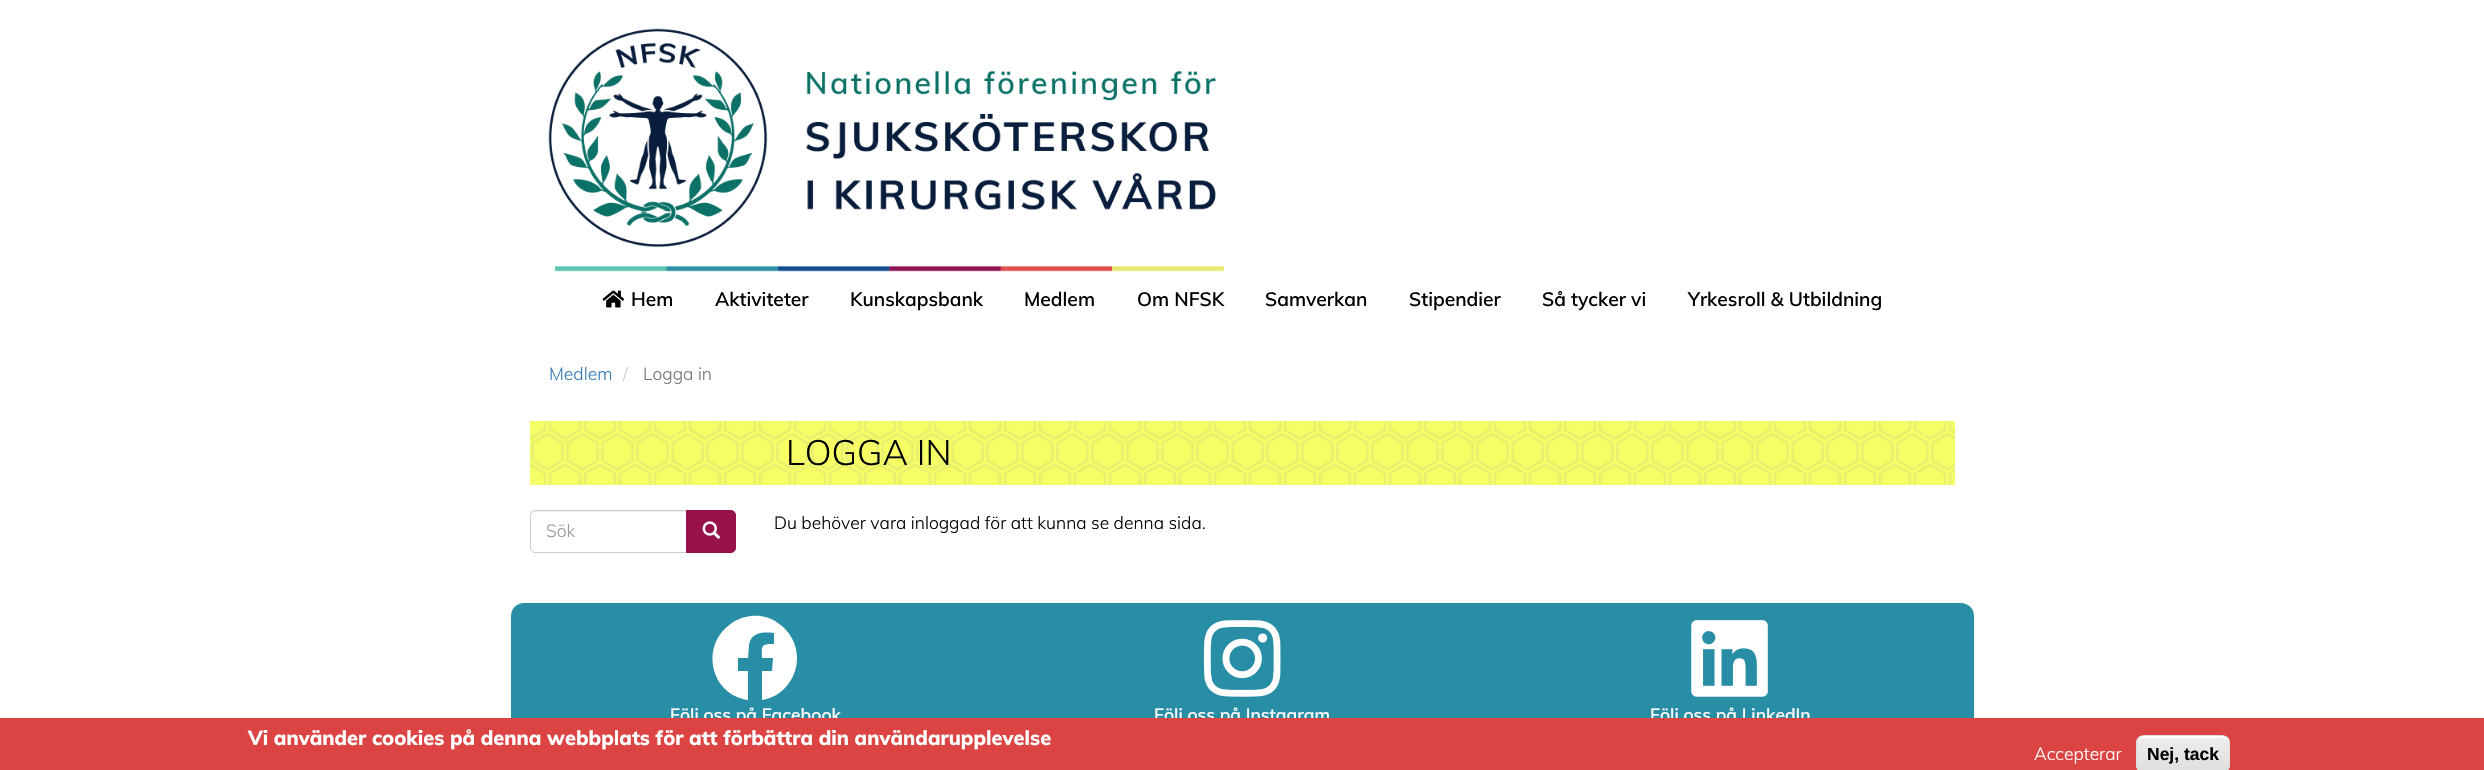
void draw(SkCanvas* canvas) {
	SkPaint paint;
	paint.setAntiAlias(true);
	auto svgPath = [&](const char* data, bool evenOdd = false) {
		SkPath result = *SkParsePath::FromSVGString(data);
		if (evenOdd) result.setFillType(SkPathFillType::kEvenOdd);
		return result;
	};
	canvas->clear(0xffffffff);
	canvas->drawImageRect(SkImages::DeferredFromEncodedData(SkData::MakeFromFileName("img1.png")), SkRect::MakeXYWH(548, 28, 676, 244), SkSamplingOptions());
	canvas->drawImageRect(SkImages::DeferredFromEncodedData(SkData::MakeFromFileName("img2.png")), SkRect::MakeXYWH(602, 290, 23, 18), SkSamplingOptions());
	SkFont f1(fontMgr->matchFamilyStyle("Muli", SkFontStyle(600, SkFontStyle::kNormal_Width, SkFontStyle::kUpright_Slant)), 19.25);
	f1.setSubpixel(true);
	paint.setColor(0xff000000);
	canvas->drawString("Hem", 631, 306, f1, paint);
	canvas->drawString("Aktiviteter", 715, 306, f1, paint);
	canvas->drawString("Kunskapsbank", 850, 306, f1, paint);
	canvas->drawString("Medlem", 1024, 306, f1, paint);
	canvas->drawString("Om NFSK", 1137, 306, f1, paint);
	canvas->drawString("Samverkan", 1265, 306, f1, paint);
	canvas->drawString("Stipendier", 1409, 306, f1, paint);
	canvas->drawString("Så tycker vi", 1542, 306, f1, paint);
	canvas->drawString("Yrkesroll & Utbildning", 1688, 306, f1, paint);
	SkFont f2(fontMgr->matchFamilyStyle("Muli", SkFontStyle(300, SkFontStyle::kNormal_Width, SkFontStyle::kUpright_Slant)), 17.5);
	f2.setSubpixel(true);
	paint.setColor(0xff337ab7);
	canvas->drawString("Medlem", 549, 380, f2, paint);
	paint.setColor(0xffcccccc);
	canvas->drawString("/", 623, 380, f2, paint);
	paint.setColor(0xff777777);
	canvas->drawString("Logga in", 643, 380, f2, paint);
	paint.setColor(0xfff5ff65);
	canvas->drawRect(SkRect::MakeXYWH(530, 421, 1425, 64), paint);
	canvas->drawImageRect(SkImages::DeferredFromEncodedData(SkData::MakeFromFileName("img3.png")), SkRect::MakeXYWH(530, 421, 1425, 64), SkSamplingOptions());
	SkFont f3(fontMgr->matchFamilyStyle("Muli", SkFontStyle(300, SkFontStyle::kNormal_Width, SkFontStyle::kUpright_Slant)), 35);
	f3.setSubpixel(true);
	paint.setColor(0xff000000);
	canvas->drawString("LOGGA IN", 786, 465, f3, paint);
	paint.setColor(0xffececec);
	canvas->drawPath(svgPath("M535 512H686V511H535C532 511 531 513 531 516C531 514 533 512 535 512Z"), paint);
	paint.setStroke(true);
	paint.setStrokeWidth(1);
	paint.setColor(0xffcccccc);
	canvas->drawPath(svgPath("M535 510.5H687.5V552.5H535C532.5 552.5 530.5 550.5 530.5 548V515C530.5 512.5 532.5 510.5 535 510.5Z"), paint);
	paint.setStroke(false);
	paint.setColor(0xff999999);
	canvas->drawString("Sök", 546, 537, f2, paint);
	paint.setColor(0xff97124b);
	canvas->drawPath(svgPath("M686.5 510.5H731C733.5 510.5 735.5 512.5 735.5 515V548C735.5 550.5 733.5 552.5 731 552.5H686.5Z"), paint);
	paint.setStroke(true);
	canvas->drawPath(svgPath("M686.5 510.5H731C733.5 510.5 735.5 512.5 735.5 515V548C735.5 550.5 733.5 552.5 731 552.5H686.5Z"), paint);
	canvas->drawImageRect(SkImages::DeferredFromEncodedData(SkData::MakeFromFileName("img4.png")), SkRect::MakeXYWH(702, 521, 19, 18), SkSamplingOptions());
	paint.setStroke(false);
	paint.setColor(0xff000000);
	canvas->drawString("Du behöver vara inloggad för att kunna se denna sida.", 774, 529, f2, paint);
	paint.setColor(0xff278ea5);
	canvas->drawRoundRect(SkRect::MakeXYWH(511, 603, 1463, 137), 13, 13, paint);
	paint.setColor(0xffffffff);
	canvas->drawPath(svgPath("M797 658C797 679 782 697 762 700V671H772L773 658H762C762 646 760 644 774 644V633C763 632 751 632 749 645L748 658H738V671H748V700C712 695 700 649 728 626C735 620 742 617 751 616C760 615 770 617 778 623C790 631 797 644 797 658Z"), paint);
	SkFont f4(fontMgr->matchFamilyStyle("Muli", SkFontStyle(600, SkFontStyle::kNormal_Width, SkFontStyle::kUpright_Slant)), 17.5);
	f4.setSubpixel(true);
	canvas->drawString("Följ oss på Facebook", 670, 721, f4, paint);
	canvas->drawImageRect(SkImages::DeferredFromEncodedData(SkData::MakeFromFileName("img5.png")), SkRect::MakeXYWH(1203, 620, 78, 77), SkSamplingOptions());
	canvas->drawString("Följ oss på Instagram", 1154, 721, f4, paint);
	canvas->drawImageRect(SkImages::DeferredFromEncodedData(SkData::MakeFromFileName("img6.png")), SkRect::MakeXYWH(1691, 620, 77, 77), SkSamplingOptions());
	canvas->drawString("Följ oss på LinkedIn", 1650, 721, f4, paint);
	paint.setColor(0xffdc4444);
	canvas->drawRect(SkRect::MakeXYWH(0, 718, 2484, 52), paint);
	SkFont f5(fontMgr->matchFamilyStyle("Muli", SkFontStyle(800, SkFontStyle::kNormal_Width, SkFontStyle::kUpright_Slant)), 20);
	f5.setSubpixel(true);
	paint.setColor(0xffffffff);
	canvas->drawString("Vi använder cookies på denna webbplats för att förbättra din användarupplevelse", 248, 745, f5, paint);
	canvas->drawString("Accepterar", 2034, 760, f2, paint);
	canvas->save();
	canvas->clipPath(svgPath("M2144 735H2222C2226.5 735 2230 738.5 2230 743V765C2230 769.5 2226.5 773 2222 773H2144C2139.5 773 2136 769.5 2136 765V743C2136 738.5 2139.5 735 2144 735Z"), true);
	{
		const SkColor colors[] = {0xffededed, 0xffdfdfdf};
		const float stops[] = {0.05, 1};
		const SkPoint ends[] = {{2183, 736}, {2183, 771}};
		paint.setShader(SkGradientShader::MakeLinear(ends, colors, stops, 2, SkTileMode::kClamp));
		paint.setAlpha(255);
	}
	canvas->drawRect(SkRect::MakeXYWH(2136, 736, 94, 34), paint);
	canvas->restore();
	paint.setShader(nullptr);
	paint.setColor(0xffffffff);
	canvas->drawPath(svgPath("M2144 738H2222C2226 738 2229 740 2229 744C2229 733 2219 736 2210 736H2157C2148 736 2138 733 2138 744C2138 740 2140 738 2144 738Z"), paint);
	paint.setStroke(true);
	paint.setColor(0xffdcdcdc);
	canvas->drawRoundRect(SkRect::MakeXYWH(2136.5, 735.5, 93, 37), 7.5, 7.5, paint);
	SkFont f6(fontMgr->matchFamilyStyle("Liberation Sans", SkFontStyle::Bold()), 17.5);
	f6.setSubpixel(true);
	paint.setStroke(false);
	paint.setColor(0xff000000);
	canvas->drawString("Nej, tack", 2147, 760, f6, paint);
}
